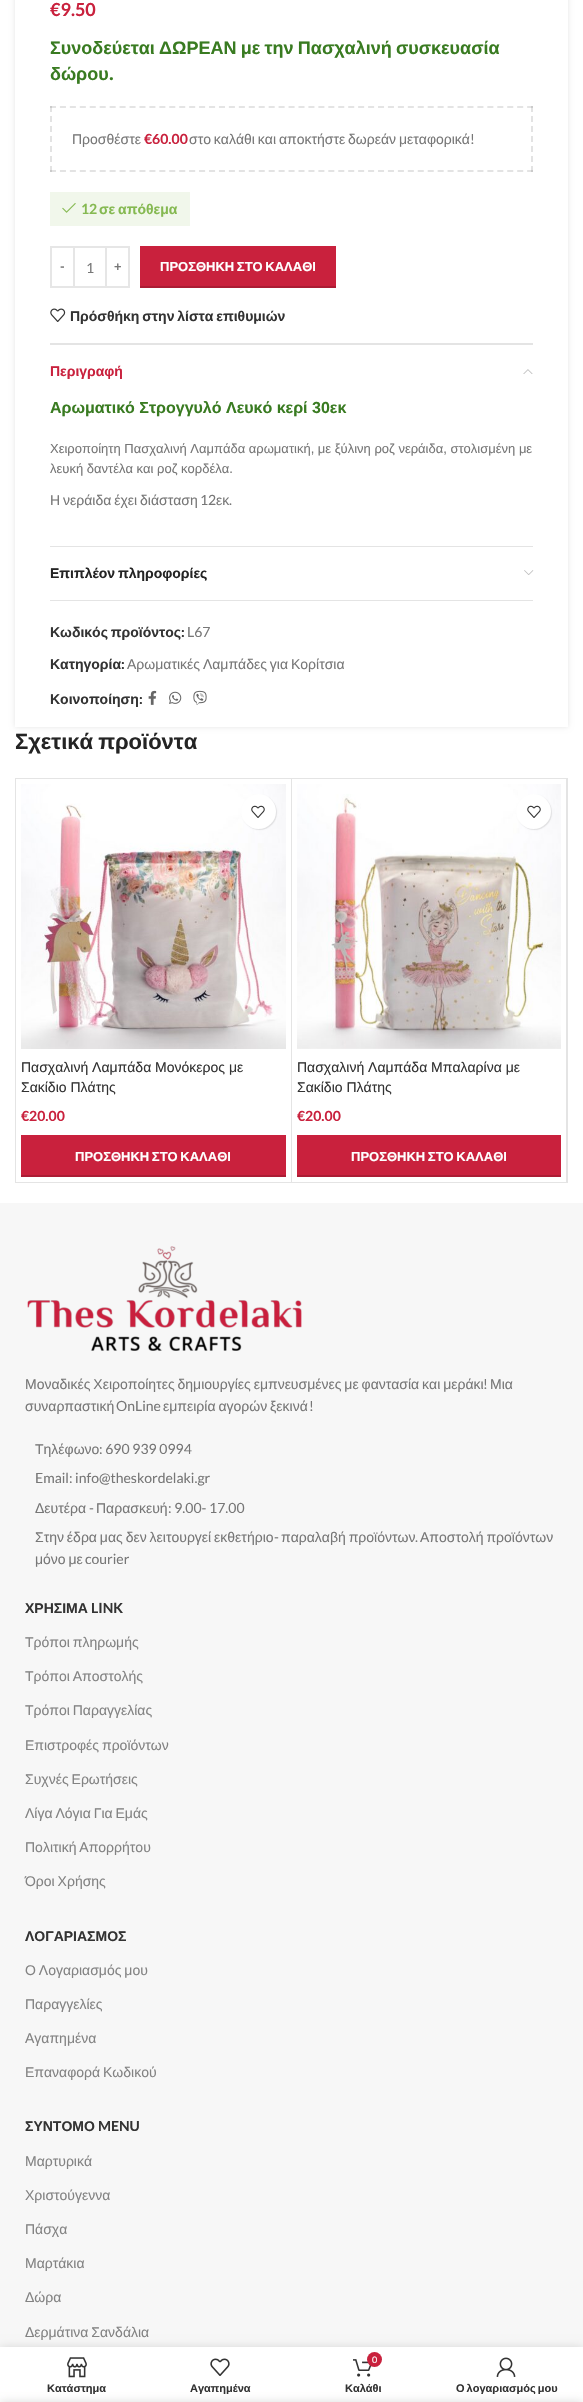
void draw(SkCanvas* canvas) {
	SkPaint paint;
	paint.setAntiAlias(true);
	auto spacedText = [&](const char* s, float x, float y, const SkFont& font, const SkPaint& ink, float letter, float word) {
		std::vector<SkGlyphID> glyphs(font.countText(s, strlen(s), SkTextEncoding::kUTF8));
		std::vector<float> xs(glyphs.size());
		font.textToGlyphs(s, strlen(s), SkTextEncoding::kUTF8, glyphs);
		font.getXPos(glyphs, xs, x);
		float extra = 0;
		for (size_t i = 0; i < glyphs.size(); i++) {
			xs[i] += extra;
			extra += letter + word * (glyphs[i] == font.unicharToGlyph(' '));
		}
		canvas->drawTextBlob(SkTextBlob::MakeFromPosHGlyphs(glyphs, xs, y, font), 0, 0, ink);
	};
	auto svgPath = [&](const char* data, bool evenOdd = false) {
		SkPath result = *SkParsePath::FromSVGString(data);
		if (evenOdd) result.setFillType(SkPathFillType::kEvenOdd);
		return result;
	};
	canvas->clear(0xffffffff);
	canvas->save();
	canvas->clipPath(svgPath("M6 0H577V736H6ZM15-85H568V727H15Z", true), true);
	paint.setColor(0x1a000000);
	paint.setMaskFilter(SkMaskFilter::MakeBlur(kNormal_SkBlurStyle, 2.5));
	canvas->drawRect(SkRect::MakeXYWH(15, -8, 553, 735), paint);
	paint.setMaskFilter(nullptr);
	canvas->restore();
	SkFont f1(fontMgr->matchFamilyStyle("Lato", SkFontStyle::Bold()), 18);
	f1.setSubpixel(true);
	paint.setColor(0xffc9213d);
	canvas->drawString("€9.50", 50, 16, f1, paint);
	SkFont f2(fontMgr->matchFamilyStyle("Liberation Sans", SkFontStyle::Bold()), 18);
	f2.setSubpixel(true);
	paint.setColor(0xff397b21);
	spacedText("Συνοδεύεται ΔΩΡΕΑΝ με την Πασχαλινή συσκευασία", 50, 54, f2, paint, 0, -0.75);
	canvas->drawString("δώρου", 50, 80, f2, paint);
	SkFont f3(fontMgr->matchFamilyStyle("Poppins", SkFontStyle(600, SkFontStyle::kNormal_Width, SkFontStyle::kUpright_Slant)), 18);
	f3.setSubpixel(true);
	canvas->drawString(".", 109, 80, f3, paint);
	paint.setStroke(true);
	paint.setStrokeWidth(2);
	paint.setColor(0xffe4e4e4);
	paint.setPathEffect(SkDashPathEffect::Make({{6, 3.94f}}, 0));
	canvas->drawPath(svgPath("M50 107H533"), paint);
	paint.setPathEffect(nullptr);
	paint.setColor(0x1c000000);
	paint.setPathEffect(SkDashPathEffect::Make({{6, 4}}, 0));
	canvas->drawPath(svgPath("M532 106V172"), paint);
	paint.setPathEffect(nullptr);
	paint.setPathEffect(SkDashPathEffect::Make({{6, 3.94f}}, 0));
	canvas->drawPath(svgPath("M50 171H533"), paint);
	paint.setPathEffect(nullptr);
	paint.setPathEffect(SkDashPathEffect::Make({{6, 4}}, 0));
	canvas->drawPath(svgPath("M51 106V172"), paint);
	paint.setPathEffect(nullptr);
	SkFont f4(fontMgr->matchFamilyStyle("Liberation Sans", SkFontStyle::Normal()), 14);
	f4.setSubpixel(true);
	paint.setStroke(false);
	paint.setColor(0xff777777);
	canvas->drawString("Προσθέστε", 72, 144, f4, paint);
	SkFont f5(fontMgr->matchFamilyStyle("Lato", SkFontStyle::Bold()), 14);
	f5.setSubpixel(true);
	paint.setColor(0xffc9213d);
	canvas->drawString("€60.00", 144, 144, f5, paint);
	paint.setColor(0xff777777);
	spacedText("στο καλάθι και αποκτήστε δωρεάν μεταφορικά", 189, 144, f4, paint, 0, -1);
	SkFont f6(fontMgr->matchFamilyStyle("Lato", SkFontStyle::Normal()), 14);
	f6.setSubpixel(true);
	canvas->drawString("!", 470, 144, f6, paint);
	paint.setColor(0xfff1f7eb);
	canvas->drawRect(SkRect::MakeXYWH(50, 192, 140, 34), paint);
	canvas->drawImageRect(SkImages::DeferredFromEncodedData(SkData::MakeFromFileName("img1.png")), SkRect::MakeXYWH(62, 203, 14, 10), SkSamplingOptions());
	paint.setColor(0xff85b951);
	canvas->drawString("12", 81, 214, f5, paint);
	SkFont f7(fontMgr->matchFamilyStyle("Liberation Sans", SkFontStyle::Bold()), 14);
	f7.setSubpixel(true);
	spacedText("σε απόθεμα", 99, 214, f7, paint, 0, -1);
	paint.setStroke(true);
	paint.setColor(0xffe6e6e6);
	canvas->drawRect(SkRect::MakeXYWH(51, 247, 23, 40), paint);
	SkFont f8(fontMgr->matchFamilyStyle("Lato", SkFontStyle::Bold()), 13);
	f8.setSubpixel(true);
	paint.setStroke(false);
	paint.setColor(0xff777777);
	canvas->drawString("-", 60, 271, f8, paint);
	paint.setColor(0xffe6e6e6);
	canvas->drawRect(SkRect::MakeXYWH(75, 246, 30, 2), paint);
	canvas->drawRect(SkRect::MakeXYWH(75, 286, 30, 2), paint);
	paint.setColor(0xff777777);
	canvas->drawString("1", 86, 273, f6, paint);
	paint.setStroke(true);
	paint.setColor(0xffe6e6e6);
	canvas->drawRect(SkRect::MakeXYWH(106, 247, 23, 40), paint);
	paint.setStroke(false);
	paint.setColor(0xff777777);
	canvas->drawString("+", 114, 271, f8, paint);
	paint.setColor(0xffc9213d);
	canvas->drawRect(SkRect::MakeXYWH(140, 246, 196, 40), paint);
	paint.setColor(0xffab1c34);
	canvas->drawRect(SkRect::MakeXYWH(140, 286, 196, 2), paint);
	SkFont f9(fontMgr->matchFamilyStyle("Liberation Sans", SkFontStyle::Bold()), 13);
	f9.setSubpixel(true);
	paint.setColor(0xffffffff);
	spacedText("ΠΡΟΣΘΗΚΗ ΣΤΟ ΚΑΛΑΘΙ", 160, 271, f9, paint, 0, -1);
	canvas->drawImageRect(SkImages::DeferredFromEncodedData(SkData::MakeFromFileName("img2.png")), SkRect::MakeXYWH(50, 308, 16, 14), SkSamplingOptions());
	paint.setColor(0xff333333);
	spacedText("Πρόσθήκη στην λίστα επιθυμιών", 70, 321, f7, paint, 0, -1);
	paint.setColor(0xffe4e4e4);
	canvas->drawRect(SkRect::MakeXYWH(50, 343, 483, 2), paint);
	canvas->drawRect(SkRect::MakeXYWH(50, 546, 483, 1), paint);
	paint.setColor(0xffc9213d);
	canvas->drawString("Περιγραφή", 50, 376, f7, paint);
	canvas->drawImageRect(SkImages::DeferredFromEncodedData(SkData::MakeFromFileName("img3.png")), SkRect::MakeXYWH(523, 369, 10, 5), SkSamplingOptions());
	SkFont f10(fontMgr->matchFamilyStyle("Liberation Sans", SkFontStyle::Bold()), 16);
	f10.setSubpixel(true);
	paint.setColor(0xff397b21);
	canvas->drawString("Αρωματικό Στρογγυλό Λευκό κερί 30εκ", 50, 413, f10, paint);
	SkFont f11(fontMgr->matchFamilyStyle("Liberation Sans", SkFontStyle::Normal()), 13);
	f11.setSubpixel(true);
	paint.setColor(0xff777777);
	canvas->drawString("Χειροποίητη Πασχαλινή Λαμπάδα αρωματική, με ξύλινη ροζ νεράιδα, στολισμένη με", 50, 453, f11, paint);
	canvas->drawString("λευκή δαντέλα και ροζ κορδέλα.", 50, 473, f11, paint);
	spacedText("Η νεράιδα έχει διάσταση", 50, 505, f4, paint, 0, -1);
	canvas->drawString("12", 200, 505, f6, paint);
	canvas->drawString("εκ", 216, 505, f4, paint);
	canvas->drawString(".", 229, 505, f6, paint);
	paint.setColor(0xffe4e4e4);
	canvas->drawRect(SkRect::MakeXYWH(50, 600, 483, 1), paint);
	paint.setColor(0xff242424);
	spacedText("Επιπλέον πληροφορίες", 50, 578, f7, paint, 0, -1);
	canvas->drawImageRect(SkImages::DeferredFromEncodedData(SkData::MakeFromFileName("img4.png")), SkRect::MakeXYWH(524, 570, 10, 5), SkSamplingOptions());
	paint.setColor(0xff333333);
	spacedText("Κωδικός προϊόντος", 50, 637, f7, paint, 0, -1);
	canvas->drawString(":", 181, 637, f5, paint);
	paint.setColor(0xff777777);
	canvas->drawString("L67", 187, 637, f6, paint);
	paint.setColor(0xff333333);
	canvas->drawString("Κατηγορία", 50, 669, f7, paint);
	canvas->drawString(":", 121, 669, f5, paint);
	paint.setColor(0xff777777);
	spacedText("Αρωματικές Λαμπάδες για Κορίτσια", 127, 669, f4, paint, 0, -1);
	paint.setColor(0xff333333);
	canvas->drawString("Κοινοποίηση", 50, 704, f7, paint);
	canvas->drawString(":", 139, 704, f5, paint);
	canvas->drawImageRect(SkImages::DeferredFromEncodedData(SkData::MakeFromFileName("img5.png")), SkRect::MakeXYWH(148, 690, 9, 15), SkSamplingOptions());
	canvas->drawImageRect(SkImages::DeferredFromEncodedData(SkData::MakeFromFileName("img6.png")), SkRect::MakeXYWH(169, 691, 13, 13), SkSamplingOptions());
	canvas->drawImageRect(SkImages::DeferredFromEncodedData(SkData::MakeFromFileName("img7.png")), SkRect::MakeXYWH(193, 690, 14, 15), SkSamplingOptions());
	SkFont f12(fontMgr->matchFamilyStyle("Liberation Sans", SkFontStyle::Bold()), 22);
	f12.setSubpixel(true);
	paint.setColor(0xff242424);
	spacedText("Σχετικά προϊόντα", 15, 749, f12, paint, 0, -1);
	paint.setStroke(true);
	paint.setStrokeWidth(1);
	paint.setColor(0xffe4e4e4);
	canvas->drawRect(SkRect::MakeXYWH(15.5, 778.5, 552, 404), paint);
	paint.setStroke(false);
	canvas->drawRect(SkRect::MakeXYWH(291, 779, 1, 403), paint);
	canvas->drawImageRect(SkImages::DeferredFromEncodedData(SkData::MakeFromFileName("img8.png")), SkRect::MakeXYWH(21, 784, 265, 265), SkSamplingOptions());
	paint.setColor(0x1a000000);
	paint.setMaskFilter(SkMaskFilter::MakeBlur(kNormal_SkBlurStyle, 0.5));
	canvas->drawRoundRect(SkRect::MakeXYWH(242, 795, 35, 35), 17.5, 17.5, paint);
	paint.setMaskFilter(nullptr);
	paint.setColor(0xffffffff);
	canvas->drawCircle(258.5, 811.5, 17.5, paint);
	canvas->drawImageRect(SkImages::DeferredFromEncodedData(SkData::MakeFromFileName("img9.png")), SkRect::MakeXYWH(251, 805, 14, 13), SkSamplingOptions());
	paint.setColor(0xff333333);
	canvas->drawString("Πασχαλινή Λαμπάδα Μονόκερος με", 21, 1072, f4, paint);
	canvas->drawString("Σακίδιο Πλάτης", 21, 1092, f4, paint);
	paint.setColor(0xffc9213d);
	canvas->drawString("€20.00", 21, 1121, f5, paint);
	canvas->drawRect(SkRect::MakeXYWH(21, 1135, 265, 40), paint);
	paint.setColor(0xffab1c34);
	canvas->drawRect(SkRect::MakeXYWH(21, 1175, 265, 2), paint);
	paint.setColor(0xffffffff);
	spacedText("ΠΡΟΣΘΗΚΗ ΣΤΟ ΚΑΛΑΘΙ", 75, 1161, f9, paint, 0, -1);
	paint.setColor(0xffe4e4e4);
	canvas->drawRect(SkRect::MakeXYWH(566, 779, 1, 403), paint);
	canvas->drawImageRect(SkImages::DeferredFromEncodedData(SkData::MakeFromFileName("img10.png")), SkRect::MakeXYWH(297, 784, 264, 265), SkSamplingOptions());
	paint.setColor(0x1a000000);
	paint.setMaskFilter(SkMaskFilter::MakeBlur(kNormal_SkBlurStyle, 0.5));
	canvas->drawRoundRect(SkRect::MakeXYWH(517, 795, 35, 35), 17.5, 17.5, paint);
	paint.setMaskFilter(nullptr);
	paint.setColor(0xffffffff);
	canvas->drawCircle(533.5, 811.5, 17.5, paint);
	canvas->drawImageRect(SkImages::DeferredFromEncodedData(SkData::MakeFromFileName("img9.png")), SkRect::MakeXYWH(527, 805, 14, 13), SkSamplingOptions());
	paint.setColor(0xff333333);
	canvas->drawString("Πασχαλινή Λαμπάδα Μπαλαρίνα με", 297, 1072, f4, paint);
	canvas->drawString("Σακίδιο Πλάτης", 297, 1092, f4, paint);
	paint.setColor(0xffc9213d);
	canvas->drawString("€20.00", 297, 1121, f5, paint);
	canvas->drawRect(SkRect::MakeXYWH(297, 1135, 264, 40), paint);
	paint.setColor(0xffab1c34);
	canvas->drawRect(SkRect::MakeXYWH(297, 1175, 264, 2), paint);
	paint.setColor(0xffffffff);
	spacedText("ΠΡΟΣΘΗΚΗ ΣΤΟ ΚΑΛΑΘΙ", 351, 1161, f9, paint, 0, -1);
	paint.setColor(0xfff7f7f7);
	canvas->drawRect(SkRect::MakeXYWH(0, 1203, 583, 1144), paint);
	canvas->drawImageRect(SkImages::DeferredFromEncodedData(SkData::MakeFromFileName("img11.png")), SkRect::MakeXYWH(27, 1246, 275, 105), SkSamplingOptions());
	paint.setColor(0xff777777);
	spacedText("Μοναδικές Χειροποίητες δημιουργίες εμπνευσμένες με φαντασία και μεράκι", 25, 1389, f4, paint, 0, -1);
	canvas->drawString("!", 483, 1389, f6, paint);
	canvas->drawString("Μια", 490, 1389, f4, paint);
	canvas->drawString("συναρπαστική", 25, 1411, f4, paint);
	canvas->drawString("OnLine", 116, 1411, f6, paint);
	spacedText("εμπειρία αγορών ξεκινά", 163, 1411, f4, paint, 0, -1);
	canvas->drawString("!", 309, 1411, f6, paint);
	canvas->drawString("Τηλέφωνο", 35, 1454, f4, paint);
	canvas->drawString(": 690 939 0994", 99, 1454, f6, paint);
	canvas->drawString("Email: info@theskordelaki.gr", 35, 1483, f6, paint);
	canvas->drawString("Δευτέρα", 35, 1513, f4, paint);
	canvas->drawString("-", 89, 1513, f6, paint);
	canvas->drawString("Παρασκευή", 96, 1513, f4, paint);
	canvas->drawString(": 9.00- 17.00", 168, 1513, f6, paint);
	spacedText("Στην έδρα μας δεν λειτουργεί εκθετήριο", 35, 1542, f4, paint, 0, -1);
	canvas->drawString("-", 274, 1542, f6, paint);
	spacedText("παραλαβή προϊόντων", 281, 1542, f4, paint, 0, -1);
	spacedText("Αποστολή προϊόντων", 420, 1542, f4, paint, 0, -1);
	canvas->drawString(".", 415, 1542, f6, paint);
	spacedText("μόνο με", 35, 1564, f4, paint, 0, -1);
	canvas->drawString("courier", 85, 1564, f6, paint);
	paint.setColor(0xff333333);
	canvas->drawString("ΧΡΗΣΙΜΑ", 25, 1613, f7, paint);
	canvas->drawString("LINK", 91, 1613, f5, paint);
	paint.setColor(0xff838383);
	spacedText("Τρόποι πληρωμής", 25, 1647, f4, paint, 0, -1);
	spacedText("Τρόποι Αποστολής", 25, 1681, f4, paint, 0, -1);
	spacedText("Τρόποι Παραγγελίας", 25, 1715, f4, paint, 0, -1);
	spacedText("Επιστροφές προϊόντων", 25, 1750, f4, paint, 0, -1);
	spacedText("Συχνές Ερωτήσεις", 25, 1784, f4, paint, 0, -1);
	spacedText("Λίγα Λόγια Για Εμάς", 25, 1818, f4, paint, 0, -1);
	spacedText("Πολιτική Απορρήτου", 25, 1852, f4, paint, 0, -1);
	spacedText("Όροι Χρήσης", 25, 1886, f4, paint, 0, -1);
	paint.setColor(0xff333333);
	canvas->drawString("ΛΟΓΑΡΙΑΣΜΟΣ", 25, 1941, f7, paint);
	paint.setColor(0xff838383);
	spacedText("Ο Λογαριασμός μου", 25, 1975, f4, paint, 0, -1);
	canvas->drawString("Παραγγελίες", 25, 2009, f4, paint);
	canvas->drawString("Αγαπημένα", 25, 2043, f4, paint);
	spacedText("Επαναφορά Κωδικού", 25, 2077, f4, paint, 0, -1);
	paint.setColor(0xff333333);
	canvas->drawString("ΣΥΝΤΟΜΟ", 25, 2131, f7, paint);
	canvas->drawString("MENU", 98, 2131, f5, paint);
	paint.setColor(0xff838383);
	canvas->drawString("Μαρτυρικά", 25, 2166, f4, paint);
	canvas->drawString("Χριστούγεννα", 25, 2200, f4, paint);
	canvas->drawString("Πάσχα", 25, 2234, f4, paint);
	canvas->drawString("Μαρτάκια", 25, 2268, f4, paint);
	canvas->drawString("Δώρα", 25, 2302, f4, paint);
	spacedText("Δερμάτινα Σανδάλια", 25, 2337, f4, paint, 0, -1);
	paint.setColor(0x1f000000);
	paint.setMaskFilter(SkMaskFilter::MakeBlur(kNormal_SkBlurStyle, 4.5));
	canvas->drawRect(SkRect::MakeXYWH(0, 2347, 583, 55), paint);
	paint.setMaskFilter(nullptr);
	paint.setColor(0xffffffff);
	canvas->drawRect(SkRect::MakeXYWH(0, 2347, 583, 55), paint);
	canvas->drawImageRect(SkImages::DeferredFromEncodedData(SkData::MakeFromFileName("img12.png")), SkRect::MakeXYWH(67, 2357, 20, 21), SkSamplingOptions());
	canvas->save();
	canvas->clipRect(SkRect::MakeXYWH(15, 2381, 123, 13));
	SkFont f13(fontMgr->matchFamilyStyle("Liberation Sans", SkFontStyle::Bold()), 11);
	f13.setSubpixel(true);
	paint.setColor(0xff333333);
	canvas->drawString("Κατάστημα", 47, 2392, f13, paint);
	canvas->restore();
	canvas->drawImageRect(SkImages::DeferredFromEncodedData(SkData::MakeFromFileName("img13.png")), SkRect::MakeXYWH(210, 2358, 20, 18), SkSamplingOptions());
	canvas->save();
	canvas->clipRect(SkRect::MakeXYWH(158, 2381, 124, 13));
	canvas->drawString("Αγαπημένα", 190, 2392, f13, paint);
	canvas->restore();
	canvas->drawImageRect(SkImages::DeferredFromEncodedData(SkData::MakeFromFileName("img14.png")), SkRect::MakeXYWH(353, 2359, 19, 18), SkSamplingOptions());
	paint.setColor(0xffc9213d);
	canvas->drawCircle(374.5, 2359.5, 7.5, paint);
	SkFont f14(fontMgr->matchFamilyStyle("Lato", SkFontStyle::Normal()), 9);
	f14.setSubpixel(true);
	paint.setColor(0xffffffff);
	canvas->drawString("0", 372, 2363, f14, paint);
	paint.setColor(0xff333333);
	canvas->drawString("Καλάθι", 345, 2392, f13, paint);
	canvas->drawImageRect(SkImages::DeferredFromEncodedData(SkData::MakeFromFileName("img15.png")), SkRect::MakeXYWH(496, 2357, 20, 20), SkSamplingOptions());
	canvas->save();
	canvas->clipRect(SkRect::MakeXYWH(445, 2381, 123, 13));
	spacedText("Ο λογαριασμός μου", 456, 2392, f13, paint, 0, -1);
	canvas->restore();
	paint.setColor(0x24000000);
	paint.setMaskFilter(SkMaskFilter::MakeBlur(kNormal_SkBlurStyle, 4.5));
	canvas->drawRect(SkRect::MakeXYWH(0, 2402, 583, 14), paint);
	paint.setMaskFilter(nullptr);
}
